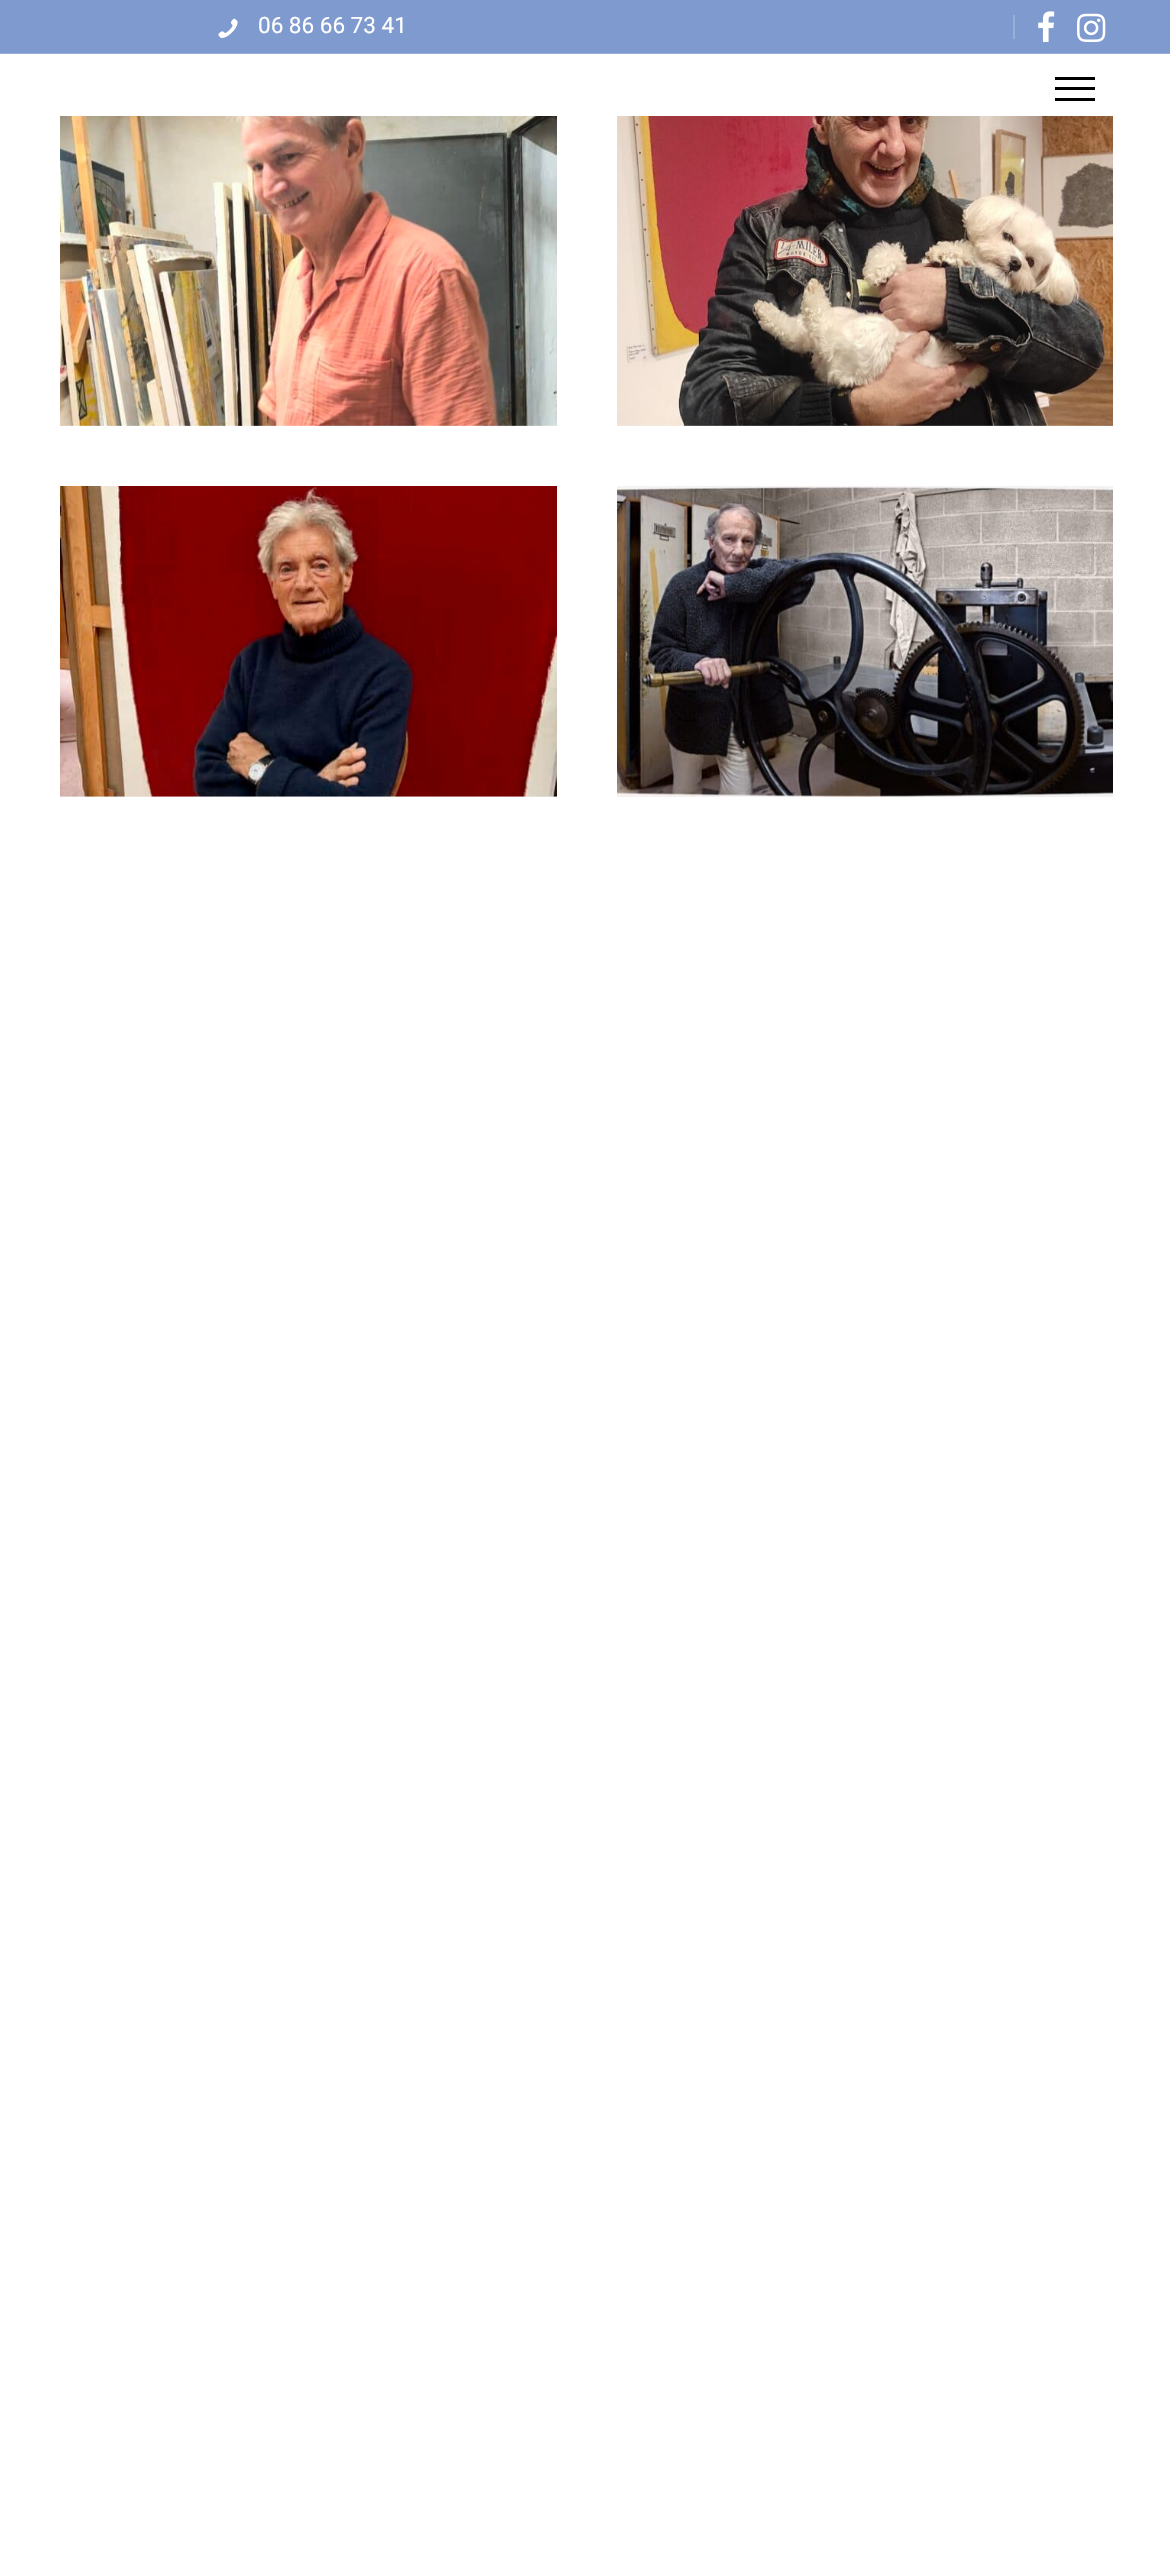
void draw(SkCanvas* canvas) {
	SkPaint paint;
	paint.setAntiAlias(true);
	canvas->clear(0xffffffff);
	paint.setColor(0xff7f9acf);
	canvas->drawRect(SkRect::MakeXYWH(0, 0, 1170, 53), paint);
	paint.setColor(0xff99aed9);
	canvas->drawRect(SkRect::MakeXYWH(0, 53, 1170, 1), paint);
	canvas->drawImageRect(SkImages::DeferredFromEncodedData(SkData::MakeFromFileName("img1.png")), SkRect::MakeXYWH(218, 18, 20, 20), SkSamplingOptions());
	SkFont f1(fontMgr->matchFamilyStyle("Roboto", SkFontStyle::Normal()), 22.5);
	f1.setSubpixel(true);
	paint.setColor(0xffffffff);
	canvas->drawString("06 86 66 73 41", 258, 33, f1, paint);
	paint.setColor(0xff99aed9);
	canvas->drawRect(SkRect::MakeXYWH(1013, 15, 2, 24), paint);
	canvas->drawImageRect(SkImages::DeferredFromEncodedData(SkData::MakeFromFileName("img2.png")), SkRect::MakeXYWH(1038, 11, 17, 31), SkSamplingOptions());
	canvas->drawImageRect(SkImages::DeferredFromEncodedData(SkData::MakeFromFileName("img3.png")), SkRect::MakeXYWH(1077, 13, 29, 29), SkSamplingOptions());
	paint.setColor(0xff000000);
	canvas->drawRect(SkRect::MakeXYWH(1055, 77, 40, 3), paint);
	canvas->drawRect(SkRect::MakeXYWH(1055, 87, 40, 3), paint);
	canvas->drawRect(SkRect::MakeXYWH(1055, 98, 40, 3), paint);
	canvas->drawImageRect(SkImages::DeferredFromEncodedData(SkData::MakeFromFileName("img4.png")), SkRect::MakeXYWH(60, 116, 497, 310), SkSamplingOptions());
	canvas->drawImageRect(SkImages::DeferredFromEncodedData(SkData::MakeFromFileName("img5.png")), SkRect::MakeXYWH(617, 116, 496, 310), SkSamplingOptions());
	paint.setColor(0xfff1f1f1);
	canvas->drawRect(SkRect::MakeXYWH(60, 796, 497, 1), paint);
	canvas->drawImageRect(SkImages::DeferredFromEncodedData(SkData::MakeFromFileName("img6.png")), SkRect::MakeXYWH(60, 486, 497, 311), SkSamplingOptions());
	canvas->drawRect(SkRect::MakeXYWH(617, 796, 496, 1), paint);
	canvas->drawImageRect(SkImages::DeferredFromEncodedData(SkData::MakeFromFileName("img7.png")), SkRect::MakeXYWH(617, 486, 496, 311), SkSamplingOptions());
}
